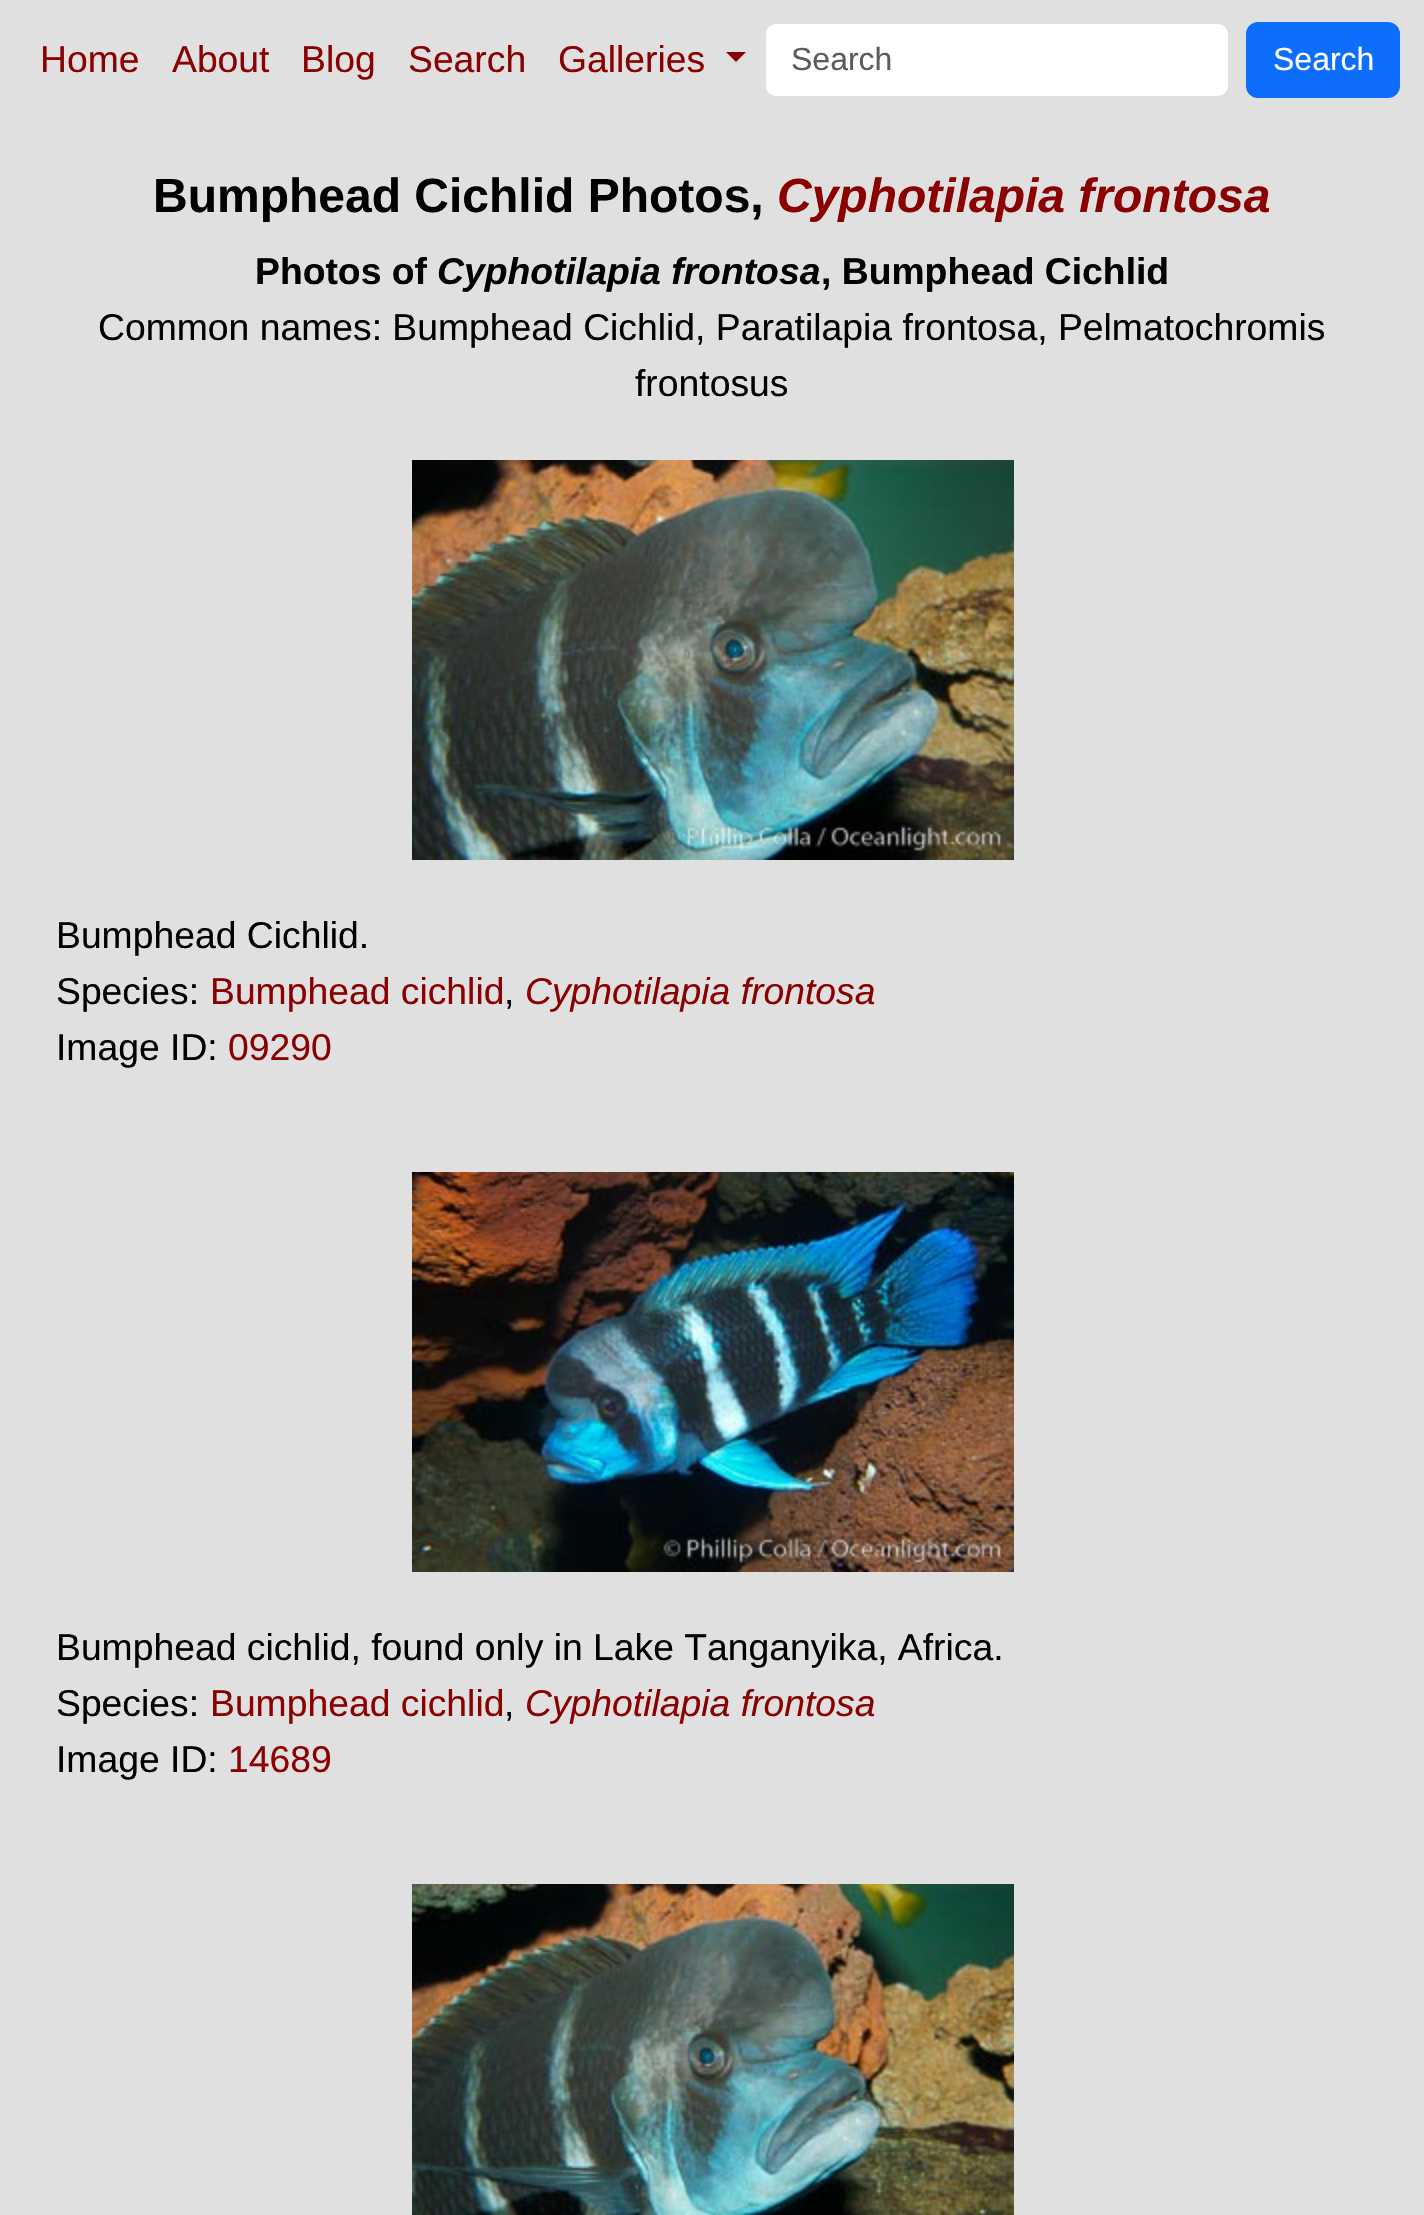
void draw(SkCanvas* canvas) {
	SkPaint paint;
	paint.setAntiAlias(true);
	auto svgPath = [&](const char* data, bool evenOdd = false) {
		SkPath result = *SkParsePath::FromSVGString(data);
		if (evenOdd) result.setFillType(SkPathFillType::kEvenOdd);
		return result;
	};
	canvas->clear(0xffe0e0e0);
	SkFont f1(fontMgr->matchFamilyStyle("Liberation Sans", SkFontStyle::Normal()), 37.3);
	f1.setSubpixel(true);
	paint.setColor(0xff8b0000);
	canvas->drawString("Home", 40, 72, f1, paint);
	canvas->drawString("About", 172, 72, f1, paint);
	canvas->drawString("Blog", 301, 72, f1, paint);
	canvas->drawString("Search", 408, 72, f1, paint);
	canvas->drawString("Galleries", 558, 72, f1, paint);
	canvas->drawPath(svgPath("M726 52H746L736 62Z"), paint);
	paint.setColor(0xffffffff);
	canvas->drawRoundRect(SkRect::MakeXYWH(765, 23, 464, 74), 11, 11, paint);
	paint.setStroke(true);
	paint.setStrokeWidth(2);
	paint.setColor(0xffdee2e6);
	canvas->drawRoundRect(SkRect::MakeXYWH(765, 23, 464, 74), 11, 11, paint);
	SkFont f2(fontMgr->matchFamilyStyle("Liberation Sans", SkFontStyle::Normal()), 32);
	f2.setSubpixel(true);
	paint.setStroke(false);
	paint.setColor(0xff595c5f);
	canvas->drawString("Search", 791, 70, f2, paint);
	paint.setColor(0xff0d6efd);
	canvas->drawRoundRect(SkRect::MakeXYWH(1247, 23, 152, 74), 11, 11, paint);
	paint.setStroke(true);
	canvas->drawRoundRect(SkRect::MakeXYWH(1247, 23, 152, 74), 11, 11, paint);
	paint.setStroke(false);
	paint.setColor(0xffffffff);
	canvas->drawString("Search", 1273, 70, f2, paint);
	SkFont f3(fontMgr->matchFamilyStyle("Liberation Sans", SkFontStyle::Bold()), 48);
	f3.setSubpixel(true);
	paint.setColor(0xff000000);
	canvas->drawString("Bumphead Cichlid Photos,", 153, 212, f3, paint);
	SkFont f4(fontMgr->matchFamilyStyle("Liberation Sans", SkFontStyle::BoldItalic()), 48);
	f4.setSubpixel(true);
	paint.setColor(0xff8b0000);
	canvas->drawString("Cyphotilapia frontosa", 777, 212, f4, paint);
	SkFont f5(fontMgr->matchFamilyStyle("Liberation Sans", SkFontStyle::Bold()), 37.3);
	f5.setSubpixel(true);
	paint.setColor(0xff000000);
	canvas->drawString("Photos of", 255, 284, f5, paint);
	SkFont f6(fontMgr->matchFamilyStyle("Liberation Sans", SkFontStyle::BoldItalic()), 37.3);
	f6.setSubpixel(true);
	canvas->drawString("Cyphotilapia frontosa", 437, 284, f6, paint);
	canvas->drawString(", Bumphead Cichlid", 821, 284, f5, paint);
	canvas->drawString("Common names: Bumphead Cichlid, Paratilapia frontosa, Pelmatochromis", 98, 340, f1, paint);
	canvas->drawString("frontosus", 635, 396, f1, paint);
	canvas->drawImageRect(SkImages::DeferredFromEncodedData(SkData::MakeFromFileName("img1.png")), SkRect::MakeXYWH(412, 460, 602, 400), SkSamplingOptions());
	canvas->drawString("Bumphead Cichlid.", 56, 948, f1, paint);
	canvas->drawString("Species:", 56, 1004, f1, paint);
	paint.setColor(0xff8b0000);
	canvas->drawString("Bumphead cichlid", 210, 1004, f1, paint);
	paint.setColor(0xff000000);
	canvas->drawString(",", 504, 1004, f1, paint);
	SkFont f7(fontMgr->matchFamilyStyle("Liberation Sans", SkFontStyle::Italic()), 37.3);
	f7.setSubpixel(true);
	paint.setColor(0xff8b0000);
	canvas->drawString("Cyphotilapia frontosa", 525, 1004, f7, paint);
	paint.setColor(0xff000000);
	canvas->drawString("Image ID:", 56, 1060, f1, paint);
	paint.setColor(0xff8b0000);
	canvas->drawString("09290", 228, 1060, f1, paint);
	canvas->drawImageRect(SkImages::DeferredFromEncodedData(SkData::MakeFromFileName("img2.png")), SkRect::MakeXYWH(412, 1172, 602, 400), SkSamplingOptions());
	paint.setColor(0xff000000);
	canvas->drawString("Bumphead cichlid, found only in Lake Tanganyika, Africa.", 56, 1660, f1, paint);
	canvas->drawString("Species:", 56, 1716, f1, paint);
	paint.setColor(0xff8b0000);
	canvas->drawString("Bumphead cichlid", 210, 1716, f1, paint);
	paint.setColor(0xff000000);
	canvas->drawString(",", 504, 1716, f1, paint);
	paint.setColor(0xff8b0000);
	canvas->drawString("Cyphotilapia frontosa", 525, 1716, f7, paint);
	paint.setColor(0xff000000);
	canvas->drawString("Image ID:", 56, 1772, f1, paint);
	paint.setColor(0xff8b0000);
	canvas->drawString("14689", 228, 1772, f1, paint);
	canvas->drawImageRect(SkImages::DeferredFromEncodedData(SkData::MakeFromFileName("img3.png")), SkRect::MakeXYWH(412, 1884, 602, 331), SkSamplingOptions());
}
